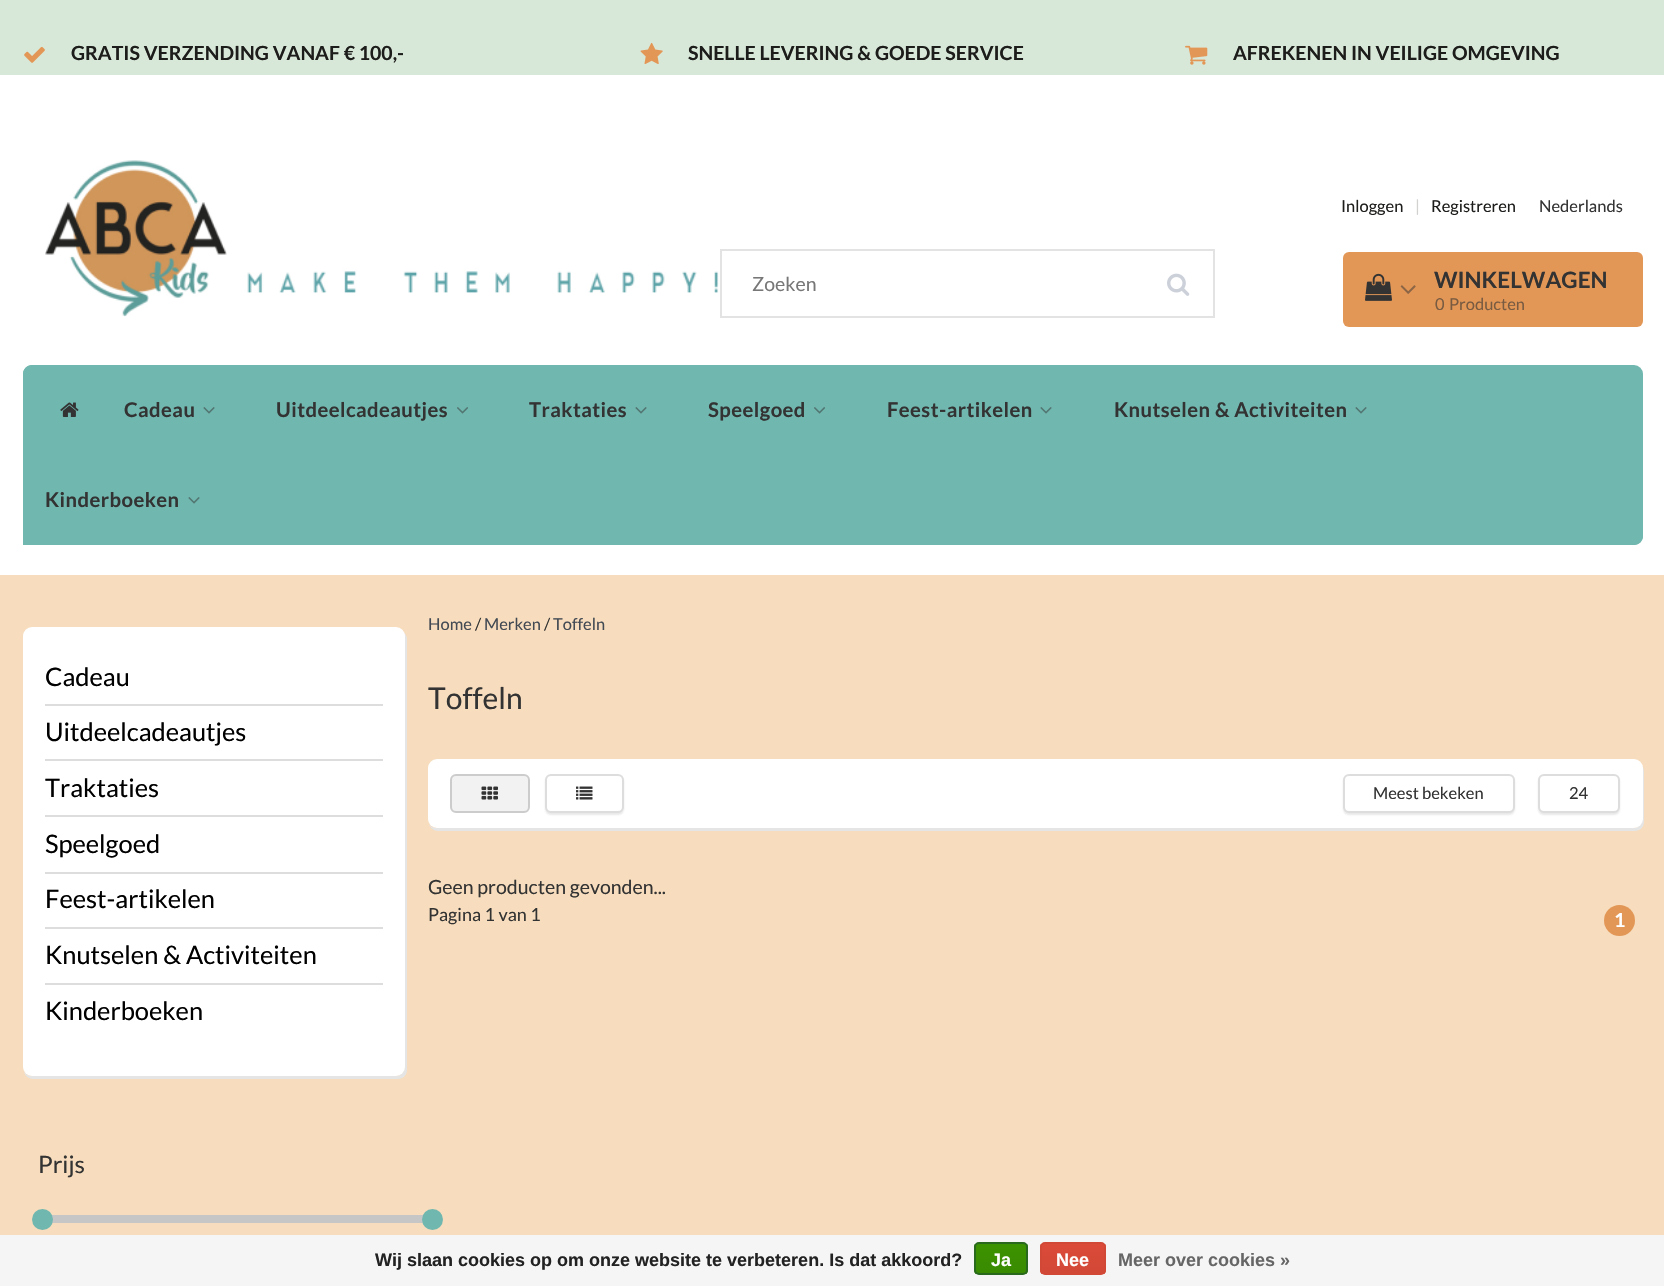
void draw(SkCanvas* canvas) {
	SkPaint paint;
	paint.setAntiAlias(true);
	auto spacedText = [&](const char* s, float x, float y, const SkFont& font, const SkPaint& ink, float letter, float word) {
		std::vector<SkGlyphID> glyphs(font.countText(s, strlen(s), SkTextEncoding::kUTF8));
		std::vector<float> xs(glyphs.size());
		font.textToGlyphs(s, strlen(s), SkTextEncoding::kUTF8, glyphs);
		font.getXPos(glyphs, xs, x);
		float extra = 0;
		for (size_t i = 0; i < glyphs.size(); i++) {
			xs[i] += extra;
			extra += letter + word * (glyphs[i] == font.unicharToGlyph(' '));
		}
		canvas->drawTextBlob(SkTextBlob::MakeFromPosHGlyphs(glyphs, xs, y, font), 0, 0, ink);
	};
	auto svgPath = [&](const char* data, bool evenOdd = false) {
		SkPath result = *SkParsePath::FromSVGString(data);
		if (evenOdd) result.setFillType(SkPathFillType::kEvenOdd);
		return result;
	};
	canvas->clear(0xfff7ddbd);
	paint.setColor(0xffd8e8d8);
	canvas->drawRect(SkRect::MakeXYWH(0, 0, 1664, 75), paint);
	canvas->drawImageRect(SkImages::DeferredFromEncodedData(SkData::MakeFromFileName("img1.png")), SkRect::MakeXYWH(24, 46, 21, 17), SkSamplingOptions());
	SkFont f1(fontMgr->matchFamilyStyle("Lato", SkFontStyle::Bold()), 19.5);
	f1.setSubpixel(true);
	paint.setColor(0xff1d1d1b);
	canvas->drawString("GRATIS VERZENDING VANAF € 100,-", 71, 60, f1, paint);
	canvas->drawImageRect(SkImages::DeferredFromEncodedData(SkData::MakeFromFileName("img2.png")), SkRect::MakeXYWH(640, 42, 23, 22), SkSamplingOptions());
	canvas->drawString("SNELLE LEVERING & GOEDE SERVICE", 688, 60, f1, paint);
	canvas->drawImageRect(SkImages::DeferredFromEncodedData(SkData::MakeFromFileName("img3.png")), SkRect::MakeXYWH(1185, 45, 23, 20), SkSamplingOptions());
	canvas->drawString("AFREKENEN IN VEILIGE OMGEVING", 1233, 60, f1, paint);
	paint.setColor(0xffffffff);
	canvas->drawRect(SkRect::MakeXYWH(0, 75, 1664, 500), paint);
	canvas->drawImageRect(SkImages::DeferredFromEncodedData(SkData::MakeFromFileName("img4.png")), SkRect::MakeXYWH(45, 160, 674, 157), SkSamplingOptions());
	paint.setStroke(true);
	paint.setStrokeWidth(2);
	paint.setColor(0xffe3e3e3);
	canvas->drawRect(SkRect::MakeXYWH(721, 250, 493, 67), paint);
	SkFont f2(fontMgr->matchFamilyStyle("Lato", SkFontStyle::Normal()), 19.5);
	f2.setSubpixel(true);
	paint.setStroke(false);
	paint.setColor(0xff777777);
	canvas->drawString("Zoeken", 752, 291, f2, paint);
	canvas->drawImageRect(SkImages::DeferredFromEncodedData(SkData::MakeFromFileName("img5.png")), SkRect::MakeXYWH(1167, 273, 23, 23), SkSamplingOptions());
	SkFont f3(fontMgr->matchFamilyStyle("Lato", SkFontStyle::Normal()), 16.5);
	f3.setSubpixel(true);
	paint.setColor(0xff1d1d1b);
	canvas->drawString("Inloggen", 1341, 212, f3, paint);
	paint.setColor(0xffd2d2d1);
	canvas->drawString("|", 1415, 212, f3, paint);
	paint.setColor(0xff1d1d1b);
	canvas->drawString("Registreren", 1431, 212, f3, paint);
	paint.setColor(0xff333333);
	canvas->drawString("Nederlands", 1539, 212, f3, paint);
	paint.setColor(0xffe39756);
	canvas->drawRoundRect(SkRect::MakeXYWH(1343, 252, 300, 75), 6, 6, paint);
	canvas->drawImageRect(SkImages::DeferredFromEncodedData(SkData::MakeFromFileName("img6.png")), SkRect::MakeXYWH(1365, 273, 27, 28), SkSamplingOptions());
	canvas->drawImageRect(SkImages::DeferredFromEncodedData(SkData::MakeFromFileName("img7.png")), SkRect::MakeXYWH(1400, 285, 16, 9), SkSamplingOptions());
	SkFont f4(fontMgr->matchFamilyStyle("Lato", SkFontStyle::Bold()), 22.5);
	f4.setSubpixel(true);
	paint.setColor(0xff333333);
	canvas->drawString("WINKELWAGEN", 1434, 288, f4, paint);
	paint.setColor(0xff795b41);
	canvas->drawString("0", 1435, 310, f3, paint);
	canvas->drawString("Producten", 1449, 310, f3, paint);
	paint.setColor(0xff70b7af);
	canvas->drawRoundRect(SkRect::MakeXYWH(23, 365, 1620, 180), 9, 9, paint);
	canvas->drawPath(svgPath("M32 365H102V455H32C27 455 23 451 23 446V374C23 369 27 365 32 365Z"), paint);
	canvas->drawImageRect(SkImages::DeferredFromEncodedData(SkData::MakeFromFileName("img8.png")), SkRect::MakeXYWH(60, 402, 19, 15), SkSamplingOptions());
	SkFont f5(fontMgr->matchFamilyStyle("Lato", SkFontStyle::Bold()), 20.25);
	f5.setSubpixel(true);
	paint.setColor(0xff333333);
	spacedText("Cadeau", 124, 417, f5, paint, 0.45, 0);
	canvas->drawImageRect(SkImages::DeferredFromEncodedData(SkData::MakeFromFileName("img9.png")), SkRect::MakeXYWH(203, 407, 12, 7), SkSamplingOptions());
	spacedText("Uitdeelcadeautjes", 276, 417, f5, paint, 0.45, 0);
	canvas->drawImageRect(SkImages::DeferredFromEncodedData(SkData::MakeFromFileName("img10.png")), SkRect::MakeXYWH(457, 407, 11, 7), SkSamplingOptions());
	spacedText("Traktaties", 529, 417, f5, paint, 0.45, 0);
	canvas->drawImageRect(SkImages::DeferredFromEncodedData(SkData::MakeFromFileName("img9.png")), SkRect::MakeXYWH(635, 407, 12, 7), SkSamplingOptions());
	spacedText("Speelgoed", 708, 417, f5, paint, 0.45, 0);
	canvas->drawImageRect(SkImages::DeferredFromEncodedData(SkData::MakeFromFileName("img10.png")), SkRect::MakeXYWH(814, 407, 11, 7), SkSamplingOptions());
	spacedText("Feest-artikelen", 887, 417, f5, paint, 0.45, 0);
	canvas->drawImageRect(SkImages::DeferredFromEncodedData(SkData::MakeFromFileName("img9.png")), SkRect::MakeXYWH(1040, 407, 12, 7), SkSamplingOptions());
	spacedText("Knutselen & Activiteiten", 1114, 417, f5, paint, 0.45, 0);
	canvas->drawImageRect(SkImages::DeferredFromEncodedData(SkData::MakeFromFileName("img9.png")), SkRect::MakeXYWH(1355, 407, 12, 7), SkSamplingOptions());
	paint.setColor(0xff70b7af);
	canvas->drawRect(SkRect::MakeXYWH(23, 536, 9, 9), paint);
	paint.setColor(0xff333333);
	spacedText("Kinderboeken", 45, 507, f5, paint, 0.45, 0);
	canvas->drawImageRect(SkImages::DeferredFromEncodedData(SkData::MakeFromFileName("img9.png")), SkRect::MakeXYWH(188, 497, 12, 7), SkSamplingOptions());
	paint.setColor(0xff70b7af);
	canvas->drawPath(svgPath("M23 530H1643V536C1643 541 1639 545 1634 545H32C27 545 23 541 23 536Z"), paint);
	paint.setColor(0xffe5e5e5);
	canvas->drawPath(svgPath("M24 1072C25 1076 29 1079 33 1079H398C403 1079 407 1075 407 1070V639C407 637 406 634 404 633L405 636V1066C405 1071 401 1076 396 1076H32C28 1076 26 1074 24 1072Z"), paint);
	paint.setColor(0xffffffff);
	canvas->drawRoundRect(SkRect::MakeXYWH(23, 627, 382, 449), 9, 9, paint);
	SkFont f6(fontMgr->matchFamilyStyle("Lato", SkFontStyle::Normal()), 25.4);
	f6.setSubpixel(true);
	paint.setColor(0xff000000);
	canvas->drawString("Cadeau", 45, 686, f6, paint);
	paint.setColor(0xffdddddd);
	canvas->drawRect(SkRect::MakeXYWH(45, 704, 338, 2), paint);
	paint.setColor(0xff000000);
	canvas->drawString("Uitdeelcadeautjes", 45, 741, f6, paint);
	paint.setColor(0xffdddddd);
	canvas->drawRect(SkRect::MakeXYWH(45, 759, 338, 2), paint);
	paint.setColor(0xff000000);
	canvas->drawString("Traktaties", 45, 797, f6, paint);
	paint.setColor(0xffdddddd);
	canvas->drawRect(SkRect::MakeXYWH(45, 815, 338, 2), paint);
	paint.setColor(0xff000000);
	canvas->drawString("Speelgoed", 45, 853, f6, paint);
	paint.setColor(0xffdddddd);
	canvas->drawRect(SkRect::MakeXYWH(45, 872, 338, 2), paint);
	paint.setColor(0xff000000);
	canvas->drawString("Feest-artikelen", 45, 908, f6, paint);
	paint.setColor(0xffdddddd);
	canvas->drawRect(SkRect::MakeXYWH(45, 927, 338, 2), paint);
	paint.setColor(0xff000000);
	canvas->drawString("Knutselen & Activiteiten", 45, 964, f6, paint);
	paint.setColor(0xffdddddd);
	canvas->drawRect(SkRect::MakeXYWH(45, 983, 338, 2), paint);
	paint.setColor(0xff000000);
	canvas->drawString("Kinderboeken", 45, 1020, f6, paint);
	SkFont f7(fontMgr->matchFamilyStyle("Lato", SkFontStyle::Normal()), 24);
	f7.setSubpixel(true);
	paint.setColor(0xff333333);
	canvas->drawString("Prijs", 38, 1173, f7, paint);
	paint.setColor(0xffc6c6c6);
	canvas->drawRect(SkRect::MakeXYWH(52, 1215, 376, 8), paint);
	paint.setColor(0xff70b7af);
	canvas->drawCircle(42.5, 1219.5, 10.5, paint);
	canvas->drawCircle(432.5, 1219.5, 10.5, paint);
	paint.setColor(0xff434a54);
	canvas->drawString("Home", 428, 630, f3, paint);
	paint.setColor(0xff333333);
	canvas->drawString("/", 475, 630, f3, paint);
	paint.setColor(0xff434a54);
	canvas->drawString("Merken", 484, 630, f3, paint);
	paint.setColor(0xff333333);
	canvas->drawString("/", 544, 630, f3, paint);
	paint.setColor(0xff434a54);
	canvas->drawString("Toffeln", 553, 630, f3, paint);
	SkFont f8(fontMgr->matchFamilyStyle("Lato", SkFontStyle::Normal()), 30);
	f8.setSubpixel(true);
	paint.setColor(0xff333333);
	canvas->drawString("Toffeln", 428, 709, f8, paint);
	paint.setColor(0xffe5e5e5);
	canvas->drawPath(svgPath("M429 824C430 828 434 831 438 831H1635C1640 831 1644 827 1644 822V771C1644 769 1643 767 1642 766V819C1642 824 1638 828 1634 828H436C434 828 431 827 429 824Z"), paint);
	paint.setColor(0xffffffff);
	canvas->drawRoundRect(SkRect::MakeXYWH(428, 759, 1215, 69), 9, 9, paint);
	paint.setColor(0xfff2f2f2);
	canvas->drawRoundRect(SkRect::MakeXYWH(451, 775, 78, 37), 5, 5, paint);
	paint.setStroke(true);
	paint.setColor(0xffcccccc);
	canvas->drawRoundRect(SkRect::MakeXYWH(451, 775, 78, 37), 5, 5, paint);
	canvas->drawImageRect(SkImages::DeferredFromEncodedData(SkData::MakeFromFileName("img11.png")), SkRect::MakeXYWH(481, 786, 17, 14), SkSamplingOptions());
	paint.setStroke(false);
	paint.setColor(0x1a221919);
	paint.setMaskFilter(SkMaskFilter::MakeBlur(kNormal_SkBlurStyle, 1));
	canvas->drawRoundRect(SkRect::MakeXYWH(545, 776, 79, 39), 6, 6, paint);
	paint.setMaskFilter(nullptr);
	paint.setColor(0xffffffff);
	canvas->drawRoundRect(SkRect::MakeXYWH(546, 775, 77, 37), 5, 5, paint);
	paint.setStroke(true);
	paint.setColor(0xffdddddd);
	canvas->drawRoundRect(SkRect::MakeXYWH(546, 775, 77, 37), 5, 5, paint);
	canvas->drawImageRect(SkImages::DeferredFromEncodedData(SkData::MakeFromFileName("img12.png")), SkRect::MakeXYWH(576, 786, 17, 14), SkSamplingOptions());
	paint.setStroke(false);
	paint.setColor(0x1a221919);
	paint.setMaskFilter(SkMaskFilter::MakeBlur(kNormal_SkBlurStyle, 1));
	canvas->drawRoundRect(SkRect::MakeXYWH(1343, 776, 172, 39), 6, 6, paint);
	paint.setMaskFilter(nullptr);
	paint.setColor(0xffffffff);
	canvas->drawRoundRect(SkRect::MakeXYWH(1344, 775, 170, 37), 5, 5, paint);
	paint.setStroke(true);
	paint.setColor(0xffdddddd);
	canvas->drawRoundRect(SkRect::MakeXYWH(1344, 775, 170, 37), 5, 5, paint);
	paint.setStroke(false);
	paint.setColor(0xff333333);
	canvas->drawString("Meest bekeken", 1373, 799, f3, paint);
	paint.setColor(0x1a221919);
	paint.setMaskFilter(SkMaskFilter::MakeBlur(kNormal_SkBlurStyle, 1));
	canvas->drawRoundRect(SkRect::MakeXYWH(1538, 776, 82, 39), 6, 6, paint);
	paint.setMaskFilter(nullptr);
	paint.setColor(0xffffffff);
	canvas->drawRoundRect(SkRect::MakeXYWH(1539, 775, 80, 37), 5, 5, paint);
	paint.setStroke(true);
	paint.setColor(0xffdddddd);
	canvas->drawRoundRect(SkRect::MakeXYWH(1539, 775, 80, 37), 5, 5, paint);
	paint.setStroke(false);
	paint.setColor(0xff333333);
	canvas->drawString("24", 1569, 799, f3, paint);
	canvas->drawString("Geen producten gevonden...", 428, 894, f2, paint);
	SkFont f9(fontMgr->matchFamilyStyle("Lato", SkFontStyle::Normal()), 18);
	f9.setSubpixel(true);
	canvas->drawString("Pagina 1 van 1", 428, 921, f9, paint);
	paint.setColor(0xffe39756);
	canvas->drawCircle(1619.5, 920.5, 15.5, paint);
	paint.setColor(0xffffffff);
	canvas->drawString("1", 1614, 927, f1, paint);
	paint.setColor(0xfff5f5f5);
	canvas->drawRect(SkRect::MakeXYWH(0, 1235, 1664, 51), paint);
	SkFont f10(fontMgr->matchFamilyStyle("Liberation Sans", SkFontStyle::Bold()), 18);
	f10.setSubpixel(true);
	paint.setColor(0xff222222);
	canvas->drawString("Wij slaan cookies op om onze website te verbeteren. Is dat akkoord?", 375, 1266, f10, paint);
	canvas->save();
	canvas->clipPath(svgPath("M979 1242H1023C1026 1242 1028 1244 1028 1247V1270C1028 1273 1026 1275 1023 1275H979C976 1275 974 1273 974 1270V1247C974 1244 976 1242 979 1242Z"), true);
	{
		const SkColor colors[] = {0xff3c9300, 0xff398a00};
		const float stops[] = {0, 1};
		const SkPoint ends[] = {{1001, 1244}, {1001, 1274}};
		paint.setShader(SkGradientShader::MakeLinear(ends, colors, stops, 2, SkTileMode::kClamp));
		paint.setAlpha(255);
	}
	canvas->drawRect(SkRect::MakeXYWH(974, 1244, 54, 30), paint);
	canvas->restore();
	paint.setStroke(true);
	paint.setShader(nullptr);
	paint.setColor(0xff29691d);
	canvas->drawRoundRect(SkRect::MakeXYWH(975, 1243, 52, 31), 4, 4, paint);
	paint.setStroke(false);
	paint.setColor(0xffffffff);
	canvas->drawString("Ja", 991, 1266, f10, paint);
	canvas->save();
	canvas->clipPath(svgPath("M1045 1242H1101C1104 1242 1106 1244 1106 1247V1270C1106 1273 1104 1275 1101 1275H1045C1042 1275 1040 1273 1040 1270V1247C1040 1244 1042 1242 1045 1242Z"), true);
	{
		const SkColor colors[] = {0xffdc4a38, 0xffd14836};
		const float stops[] = {0, 1};
		const SkPoint ends[] = {{1073, 1244}, {1073, 1274}};
		paint.setShader(SkGradientShader::MakeLinear(ends, colors, stops, 2, SkTileMode::kClamp));
		paint.setAlpha(255);
	}
	canvas->drawRect(SkRect::MakeXYWH(1040, 1244, 66, 30), paint);
	canvas->restore();
	paint.setStroke(true);
	paint.setShader(nullptr);
	paint.setColor(0xffd14836);
	canvas->drawRoundRect(SkRect::MakeXYWH(1041, 1243, 64, 31), 4, 4, paint);
	paint.setStroke(false);
	paint.setColor(0xffffffff);
	canvas->drawString("Nee", 1056, 1266, f10, paint);
	paint.setColor(0xff666666);
	canvas->drawString("Meer over cookies »", 1118, 1266, f10, paint);
}
